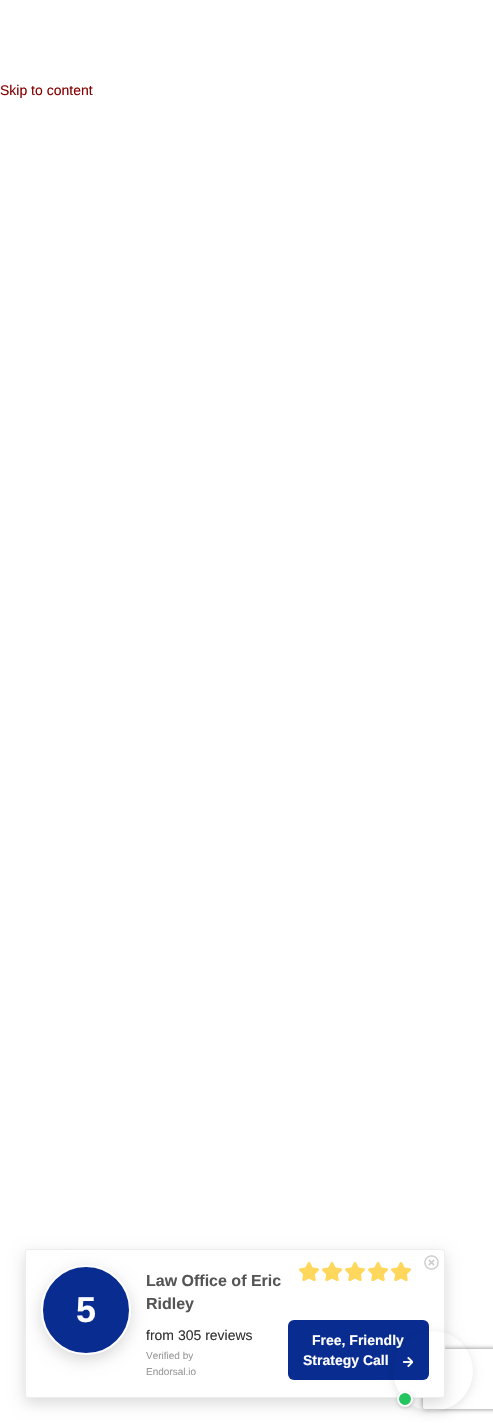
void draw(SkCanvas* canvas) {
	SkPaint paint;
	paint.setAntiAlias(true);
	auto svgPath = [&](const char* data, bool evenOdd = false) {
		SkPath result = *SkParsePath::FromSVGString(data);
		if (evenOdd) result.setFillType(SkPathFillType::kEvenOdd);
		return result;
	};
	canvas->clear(0xffffffff);
	SkFont f1(fontMgr->matchFamilyStyle("Liberation Sans", SkFontStyle::Normal()), 14);
	f1.setSubpixel(true);
	paint.setColor(0xff860000);
	canvas->drawString("Skip to content", 0, 95, f1, paint);
	paint.setColor(0x26000000);
	paint.setMaskFilter(SkMaskFilter::MakeBlur(kNormal_SkBlurStyle, 7.5));
	canvas->drawRoundRect(SkRect::MakeXYWH(25, 1254, 420, 149), 3, 3, paint);
	paint.setMaskFilter(nullptr);
	canvas->save();
	canvas->clipPath(svgPath("M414 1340H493V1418H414ZM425 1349H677C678 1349 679 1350 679 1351V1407C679 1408 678 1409 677 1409H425C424 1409 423 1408 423 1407V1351C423 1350 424 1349 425 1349Z", true), true);
	paint.setColor(0xff808080);
	paint.setMaskFilter(SkMaskFilter::MakeBlur(kNormal_SkBlurStyle, 2.5));
	canvas->drawRoundRect(SkRect::MakeXYWH(423, 1349, 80, 60), 2, 2, paint);
	paint.setMaskFilter(nullptr);
	canvas->restore();
	paint.setColor(0xffffffff);
	canvas->drawRoundRect(SkRect::MakeXYWH(25.5, 1249.5, 419, 148), 2.5, 2.5, paint);
	paint.setStroke(true);
	paint.setStrokeWidth(1);
	paint.setColor(0xffededed);
	canvas->drawRoundRect(SkRect::MakeXYWH(25.5, 1249.5, 419, 148), 2.5, 2.5, paint);
	canvas->drawImageRect(SkImages::DeferredFromEncodedData(SkData::MakeFromFileName("img1.png")), SkRect::MakeXYWH(424, 1255, 15, 15), SkSamplingOptions());
	paint.setStroke(false);
	paint.setColor(0x26000000);
	paint.setMaskFilter(SkMaskFilter::MakeBlur(kNormal_SkBlurStyle, 7.5));
	canvas->drawRoundRect(SkRect::MakeXYWH(41, 1270, 90, 90), 45, 45, paint);
	paint.setMaskFilter(nullptr);
	paint.setColor(0xff082c90);
	canvas->drawCircle(86, 1310, 44, paint);
	paint.setStroke(true);
	paint.setStrokeWidth(2);
	paint.setColor(0xffffffff);
	canvas->drawCircle(86, 1310, 44, paint);
	SkFont f2(fontMgr->matchFamilyStyle("Liberation Sans", SkFontStyle::Bold()), 36);
	f2.setSubpixel(true);
	paint.setStroke(false);
	canvas->drawString("5", 76, 1322, f2, paint);
	canvas->drawImageRect(SkImages::DeferredFromEncodedData(SkData::MakeFromFileName("img2.png")), SkRect::MakeXYWH(299, 1262, 20, 19), SkSamplingOptions());
	canvas->drawImageRect(SkImages::DeferredFromEncodedData(SkData::MakeFromFileName("img2.png")), SkRect::MakeXYWH(322, 1262, 20, 19), SkSamplingOptions());
	canvas->drawImageRect(SkImages::DeferredFromEncodedData(SkData::MakeFromFileName("img2.png")), SkRect::MakeXYWH(345, 1262, 20, 19), SkSamplingOptions());
	canvas->drawImageRect(SkImages::DeferredFromEncodedData(SkData::MakeFromFileName("img2.png")), SkRect::MakeXYWH(368, 1262, 20, 19), SkSamplingOptions());
	canvas->drawImageRect(SkImages::DeferredFromEncodedData(SkData::MakeFromFileName("img2.png")), SkRect::MakeXYWH(391, 1262, 20, 19), SkSamplingOptions());
	SkFont f3(fontMgr->matchFamilyStyle("Liberation Sans", SkFontStyle::Bold()), 16);
	f3.setSubpixel(true);
	paint.setColor(0xff555555);
	canvas->drawString("Law Office of Eric", 146, 1286, f3, paint);
	canvas->drawString("Ridley", 146, 1309, f3, paint);
	paint.setColor(0xff333333);
	canvas->drawString("from 305 reviews", 146, 1340, f1, paint);
	SkFont f4(fontMgr->matchFamilyStyle("Liberation Sans", SkFontStyle::Normal()), 10);
	f4.setSubpixel(true);
	paint.setColor(0xff999999);
	canvas->drawString("Verified by", 146, 1359, f4, paint);
	canvas->drawString("Endorsal.io", 146, 1375, f4, paint);
	paint.setColor(0xff082c90);
	canvas->drawRoundRect(SkRect::MakeXYWH(288, 1320, 141, 60), 6, 6, paint);
	SkFont f5(fontMgr->matchFamilyStyle("Liberation Sans", SkFontStyle::Bold()), 14);
	f5.setSubpixel(true);
	paint.setColor(0xffffffff);
	canvas->drawString("Free, Friendly", 312, 1345, f5, paint);
	canvas->drawString("Strategy Call", 303, 1365, f5, paint);
	canvas->drawImageRect(SkImages::DeferredFromEncodedData(SkData::MakeFromFileName("img3.png")), SkRect::MakeXYWH(403, 1356, 10, 12), SkSamplingOptions());
	canvas->save();
	canvas->clipPath(svgPath("M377 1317H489V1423H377ZM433 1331C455 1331 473 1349 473 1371C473 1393 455 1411 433 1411C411 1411 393 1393 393 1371C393 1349 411 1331 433 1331Z", true), true);
	paint.setColor(0x1a000000);
	paint.setMaskFilter(SkMaskFilter::MakeBlur(kNormal_SkBlurStyle, 5));
	canvas->drawRoundRect(SkRect::MakeXYWH(393, 1333, 80, 80), 40, 40, paint);
	paint.setMaskFilter(nullptr);
	canvas->restore();
	paint.setColor(0x33000000);
	paint.setMaskFilter(SkMaskFilter::MakeBlur(kNormal_SkBlurStyle, 1.5));
	canvas->drawRoundRect(SkRect::MakeXYWH(397, 1392, 16, 16), 8, 8, paint);
	paint.setMaskFilter(nullptr);
	paint.setColor(0xff22c55e);
	canvas->drawCircle(405, 1399, 7, paint);
	paint.setStroke(true);
	paint.setColor(0xffffffff);
	canvas->drawCircle(405, 1399, 7, paint);
}
